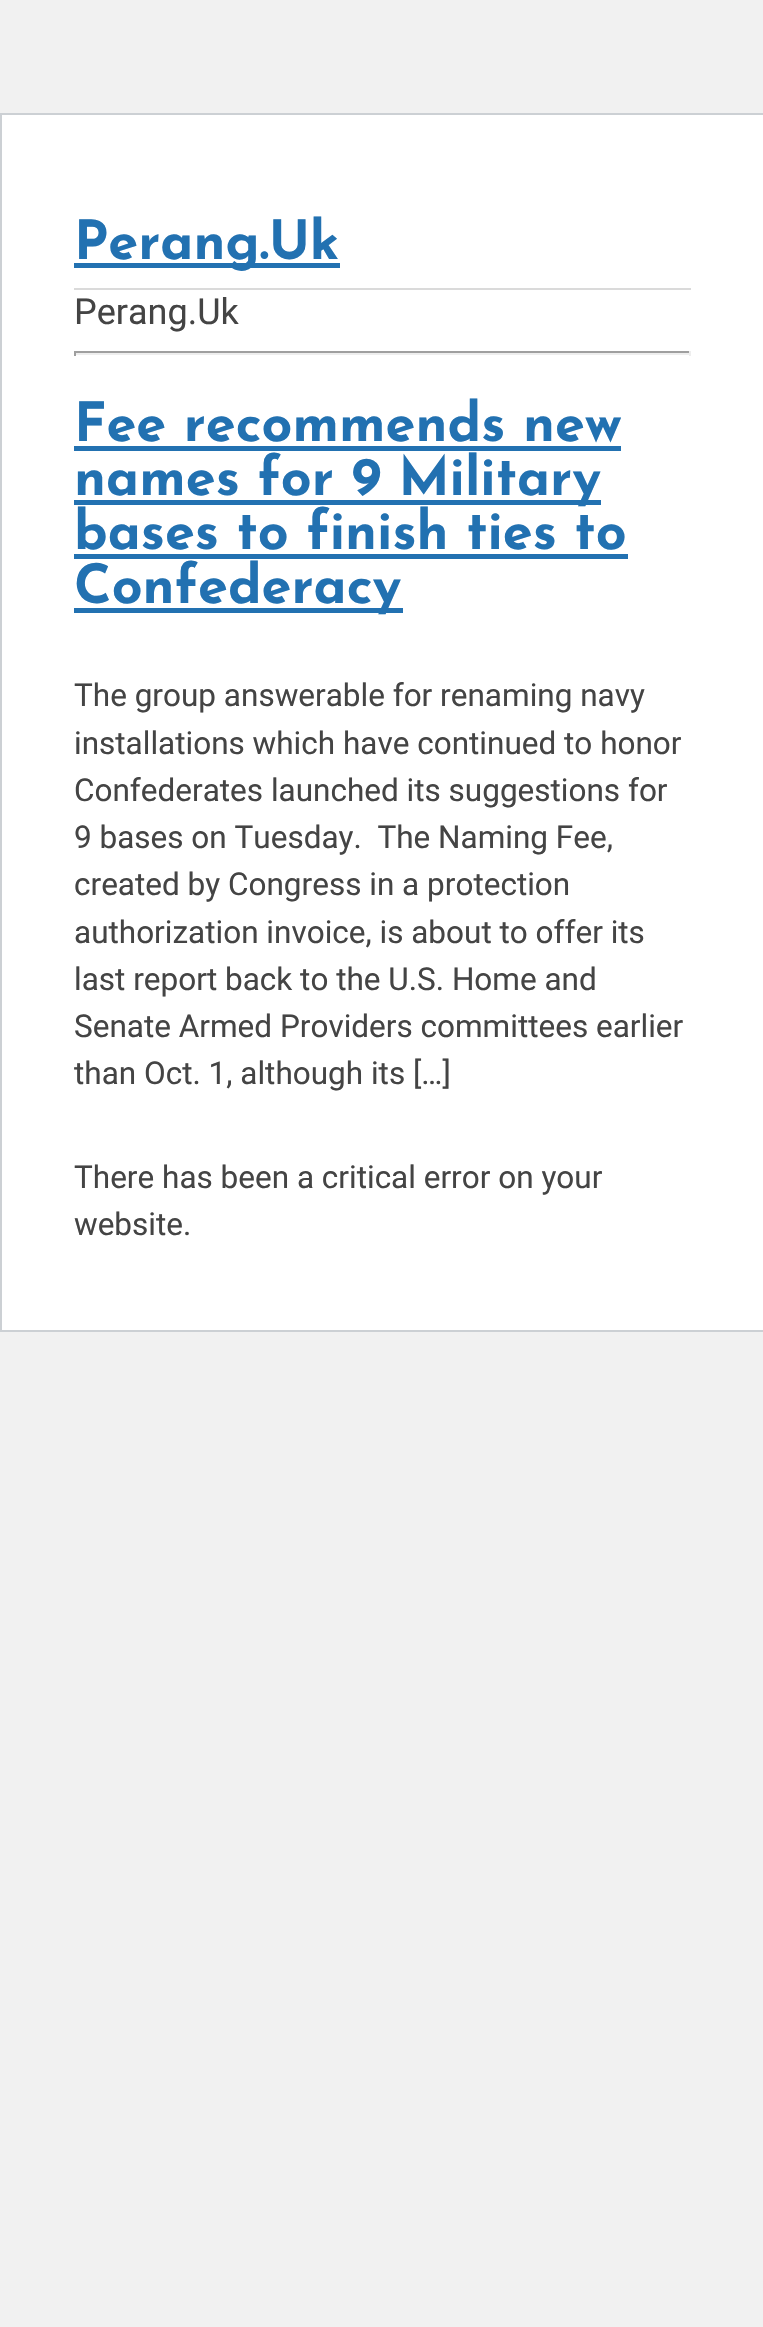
void draw(SkCanvas* canvas) {
	SkPaint paint;
	paint.setAntiAlias(true);
	canvas->clear(0xfff1f1f1);
	paint.setColor(0xffffffff);
	canvas->drawRect(SkRect::MakeXYWH(1, 114, 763, 1217), paint);
	paint.setStroke(true);
	paint.setStrokeWidth(2);
	paint.setColor(0xffccd0d4);
	canvas->drawRect(SkRect::MakeXYWH(1, 114, 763, 1217), paint);
	paint.setStroke(false);
	paint.setColor(0xffdadada);
	canvas->drawRect(SkRect::MakeXYWH(74, 288, 617, 2), paint);
	paint.setColor(0xff2271b1);
	canvas->drawRect(SkRect::MakeXYWH(74, 263, 266, 5), paint);
	SkFont f1(fontMgr->matchFamilyStyle("Josefin Sans", SkFontStyle::Bold()), 54);
	f1.setSubpixel(true);
	canvas->drawString("Perang.Uk", 74, 259, f1, paint);
	SkFont f2(fontMgr->matchFamilyStyle("Roboto", SkFontStyle::Normal()), 36);
	f2.setSubpixel(true);
	paint.setColor(0xff444444);
	canvas->drawString("Perang.Uk", 74, 324, f2, paint);
	paint.setColor(0xff9f9f9f);
	canvas->drawRect(SkRect::MakeXYWH(74, 351, 617, 2), paint);
	paint.setColor(0xffeeeeee);
	canvas->drawRect(SkRect::MakeXYWH(689, 351, 2, 5), paint);
	canvas->drawRect(SkRect::MakeXYWH(74, 353, 617, 2), paint);
	paint.setColor(0xff9f9f9f);
	canvas->drawRect(SkRect::MakeXYWH(74, 351, 2, 5), paint);
	paint.setColor(0xff2271b1);
	canvas->drawString("Fee recommends new", 74, 441, f1, paint);
	canvas->drawRect(SkRect::MakeXYWH(74, 446, 547, 5), paint);
	canvas->drawRect(SkRect::MakeXYWH(74, 500, 527, 5), paint);
	canvas->drawString("names for 9 Military", 74, 495, f1, paint);
	canvas->drawString("bases to finish ties to", 74, 549, f1, paint);
	canvas->drawRect(SkRect::MakeXYWH(74, 554, 554, 5), paint);
	canvas->drawRect(SkRect::MakeXYWH(74, 608, 329, 5), paint);
	canvas->drawString("Confederacy", 74, 603, f1, paint);
	SkFont f3(fontMgr->matchFamilyStyle("Roboto", SkFontStyle::Normal()), 31.5);
	f3.setSubpixel(true);
	paint.setColor(0xff444444);
	canvas->drawString("The group answerable for renaming navy", 74, 706, f3, paint);
	canvas->drawString("installations which have continued to honor", 74, 754, f3, paint);
	canvas->drawString("Confederates launched its suggestions for", 74, 801, f3, paint);
	canvas->drawString("9 bases on Tuesday.  The Naming Fee,", 74, 848, f3, paint);
	canvas->drawString("created by Congress in a protection", 74, 895, f3, paint);
	canvas->drawString("authorization invoice, is about to offer its", 74, 943, f3, paint);
	canvas->drawString("last report back to the U.S. Home and", 74, 990, f3, paint);
	canvas->drawString("Senate Armed Providers committees earlier", 74, 1037, f3, paint);
	canvas->drawString("than Oct. 1, although its […]", 74, 1084, f3, paint);
	canvas->drawString("There has been a critical error on your", 74, 1188, f3, paint);
	canvas->drawString("website.", 74, 1235, f3, paint);
}
